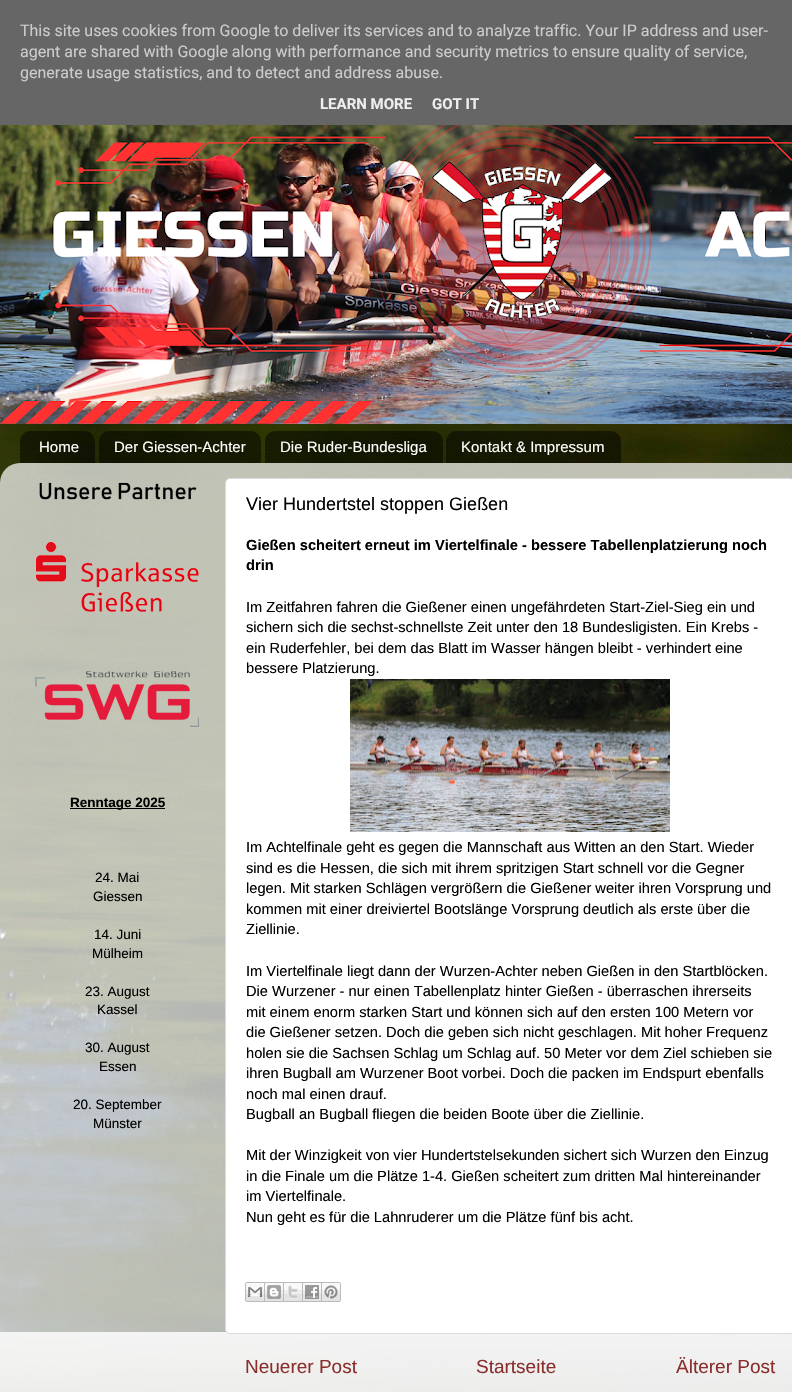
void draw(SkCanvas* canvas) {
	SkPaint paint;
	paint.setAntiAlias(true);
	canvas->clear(0xffffffff);
	canvas->drawImageRect(SkImages::DeferredFromEncodedData(SkData::MakeFromFileName("img1.png")), SkRect::MakeXYWH(0, 424, 792, 968), SkSamplingOptions());
	paint.setColor(0xff666666);
	canvas->drawRect(SkRect::MakeXYWH(0, 0, 792, 125), paint);
	SkFont f1(fontMgr->matchFamilyStyle("Roboto", SkFontStyle::Normal()), 16);
	f1.setSubpixel(true);
	paint.setColor(0xffcccccc);
	canvas->drawString("This site uses cookies from Google to deliver its services and to analyze traffic. Your IP address and user-", 20, 36, f1, paint);
	canvas->drawString("agent are shared with Google along with performance and security metrics to ensure quality of service,", 20, 57, f1, paint);
	canvas->drawString("generate usage statistics, and to detect and address abuse.", 20, 78, f1, paint);
	SkFont f2(fontMgr->matchFamilyStyle("Roboto", SkFontStyle::Bold()), 15);
	f2.setSubpixel(true);
	paint.setColor(0xffeeeeee);
	canvas->drawString("LEARN MORE", 320, 109, f2, paint);
	canvas->drawString("GOT IT", 432, 109, f2, paint);
	canvas->drawImageRect(SkImages::DeferredFromEncodedData(SkData::MakeFromFileName("img2.png")), SkRect::MakeXYWH(0, 125, 792, 299), SkSamplingOptions());
	canvas->drawImageRect(SkImages::DeferredFromEncodedData(SkData::MakeFromFileName("img3.png")), SkRect::MakeXYWH(20, 431, 75, 32), SkSamplingOptions());
	SkFont f3(fontMgr->matchFamilyStyle("Liberation Sans", SkFontStyle::Normal()), 15);
	f3.setSubpixel(true);
	paint.setColor(0xffffffff);
	canvas->drawString("Home", 39, 452, f3, paint);
	canvas->drawImageRect(SkImages::DeferredFromEncodedData(SkData::MakeFromFileName("img4.png")), SkRect::MakeXYWH(99, 431, 162, 32), SkSamplingOptions());
	canvas->drawString("Der Giessen-Achter", 114, 452, f3, paint);
	canvas->drawImageRect(SkImages::DeferredFromEncodedData(SkData::MakeFromFileName("img5.png")), SkRect::MakeXYWH(265, 431, 178, 32), SkSamplingOptions());
	canvas->drawString("Die Ruder-Bundesliga", 280, 452, f3, paint);
	canvas->drawImageRect(SkImages::DeferredFromEncodedData(SkData::MakeFromFileName("img6.png")), SkRect::MakeXYWH(446, 431, 175, 32), SkSamplingOptions());
	canvas->drawString("Kontakt & Impressum", 461, 452, f3, paint);
	canvas->drawImageRect(SkImages::DeferredFromEncodedData(SkData::MakeFromFileName("img7.png")), SkRect::MakeXYWH(0, 463, 792, 929), SkSamplingOptions());
	canvas->drawImageRect(SkImages::DeferredFromEncodedData(SkData::MakeFromFileName("img8.png")), SkRect::MakeXYWH(35, 482, 165, 246), SkSamplingOptions());
	paint.setColor(0xff000000);
	canvas->drawRect(SkRect::MakeXYWH(70, 808, 95, 1), paint);
	SkFont f4(fontMgr->matchFamilyStyle("Liberation Sans", SkFontStyle::Bold()), 13.5);
	f4.setSubpixel(true);
	canvas->drawString("Renntage 2025", 70, 807, f4, paint);
	SkFont f5(fontMgr->matchFamilyStyle("Liberation Sans", SkFontStyle::Normal()), 13.5);
	f5.setSubpixel(true);
	canvas->drawString("24. Mai", 95, 882, f5, paint);
	canvas->drawString("Giessen", 93, 901, f5, paint);
	canvas->drawString("14. Juni", 94, 939, f5, paint);
	canvas->drawString("Mülheim", 92, 958, f5, paint);
	canvas->drawString("23. August", 85, 996, f5, paint);
	canvas->drawString("Kassel", 97, 1014, f5, paint);
	canvas->drawString("30. August", 85, 1052, f5, paint);
	canvas->drawString("Essen", 99, 1071, f5, paint);
	canvas->drawString("20. September", 73, 1109, f5, paint);
	canvas->drawString("Münster", 93, 1128, f5, paint);
	paint.setColor(0xffffffff);
	canvas->drawRoundRect(SkRect::MakeXYWH(225.5, 478.5, 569, 855), 4.5, 4.5, paint);
	paint.setStroke(true);
	paint.setStrokeWidth(1);
	paint.setColor(0xffdbdbdb);
	canvas->drawRoundRect(SkRect::MakeXYWH(225.5, 478.5, 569, 855), 4.5, 4.5, paint);
	SkFont f6(fontMgr->matchFamilyStyle("Liberation Sans", SkFontStyle::Normal()), 18);
	f6.setSubpixel(true);
	paint.setStroke(false);
	paint.setColor(0xff000000);
	canvas->drawString("Vier Hundertstel stoppen Gießen", 246, 510, f6, paint);
	SkFont f7(fontMgr->matchFamilyStyle("Liberation Sans", SkFontStyle::Bold()), 14.65);
	f7.setSubpixel(true);
	canvas->drawString("Gießen scheitert erneut im Viertelfinale - bessere Tabellenplatzierung noch", 246, 550, f7, paint);
	canvas->drawString("drin", 246, 570, f7, paint);
	SkFont f8(fontMgr->matchFamilyStyle("Liberation Sans", SkFontStyle::Normal()), 14.65);
	f8.setSubpixel(true);
	canvas->drawString("Im Zeitfahren fahren die Gießener einen ungefährdeten Start-Ziel-Sieg ein und", 246, 612, f8, paint);
	canvas->drawString("sichern sich die sechst-schnellste Zeit unter den 18 Bundesligisten. Ein Krebs -", 246, 632, f8, paint);
	canvas->drawString("ein Ruderfehler, bei dem das Blatt im Wasser hängen bleibt - verhindert eine", 246, 653, f8, paint);
	canvas->drawString("bessere Platzierung.", 246, 673, f8, paint);
	canvas->drawImageRect(SkImages::DeferredFromEncodedData(SkData::MakeFromFileName("img9.png")), SkRect::MakeXYWH(350, 679, 320, 153), SkSamplingOptions());
	canvas->drawString("Im Achtelfinale geht es gegen die Mannschaft aus Witten an den Start. Wieder", 246, 852, f8, paint);
	canvas->drawString("sind es die Hessen, die sich mit ihrem spritzigen Start schnell vor die Gegner", 246, 873, f8, paint);
	canvas->drawString("legen. Mit starken Schlägen vergrößern die Gießener weiter ihren Vorsprung und", 246, 893, f8, paint);
	canvas->drawString("kommen mit einer dreiviertel Bootslänge Vorsprung deutlich als erste über die", 246, 914, f8, paint);
	canvas->drawString("Ziellinie.", 246, 934, f8, paint);
	canvas->drawString("Im Viertelfinale liegt dann der Wurzen-Achter neben Gießen in den Startblöcken.", 246, 976, f8, paint);
	canvas->drawString("Die Wurzener - nur einen Tabellenplatz hinter Gießen - überraschen ihrerseits", 246, 996, f8, paint);
	canvas->drawString("mit einem enorm starken Start und können sich auf den ersten 100 Metern vor", 246, 1017, f8, paint);
	canvas->drawString("die Gießener setzen. Doch die geben sich nicht geschlagen. Mit hoher Frequenz", 246, 1037, f8, paint);
	canvas->drawString("holen sie die Sachsen Schlag um Schlag auf. 50 Meter vor dem Ziel schieben sie", 246, 1058, f8, paint);
	canvas->drawString("ihren Bugball am Wurzener Boot vorbei. Doch die packen im Endspurt ebenfalls", 246, 1078, f8, paint);
	canvas->drawString("noch mal einen drauf.", 246, 1099, f8, paint);
	canvas->drawString("Bugball an Bugball fliegen die beiden Boote über die Ziellinie.", 246, 1119, f8, paint);
	canvas->drawString("Mit der Winzigkeit von vier Hundertstelsekunden sichert sich Wurzen den Einzug", 246, 1160, f8, paint);
	canvas->drawString("in die Finale um die Plätze 1-4. Gießen scheitert zum dritten Mal hintereinander", 246, 1181, f8, paint);
	canvas->drawString("im Viertelfinale.", 246, 1201, f8, paint);
	canvas->drawString("Nun geht es für die Lahnruderer um die Plätze fünf bis acht.", 246, 1222, f8, paint);
	canvas->drawImageRect(SkImages::DeferredFromEncodedData(SkData::MakeFromFileName("img10.png")), SkRect::MakeXYWH(245, 1282, 20, 20), SkSamplingOptions());
	canvas->drawImageRect(SkImages::DeferredFromEncodedData(SkData::MakeFromFileName("img11.png")), SkRect::MakeXYWH(265, 1282, 19, 20), SkSamplingOptions());
	canvas->drawImageRect(SkImages::DeferredFromEncodedData(SkData::MakeFromFileName("img12.png")), SkRect::MakeXYWH(284, 1282, 19, 20), SkSamplingOptions());
	canvas->drawImageRect(SkImages::DeferredFromEncodedData(SkData::MakeFromFileName("img13.png")), SkRect::MakeXYWH(303, 1282, 19, 20), SkSamplingOptions());
	canvas->drawImageRect(SkImages::DeferredFromEncodedData(SkData::MakeFromFileName("img14.png")), SkRect::MakeXYWH(322, 1282, 19, 20), SkSamplingOptions());
	SkFont f9(fontMgr->matchFamilyStyle("Liberation Sans", SkFontStyle::Normal()), 19);
	f9.setSubpixel(true);
	paint.setColor(0xff8a2e2e);
	canvas->drawString("Neuerer Post", 245, 1373, f9, paint);
	canvas->drawString("Startseite", 476, 1373, f9, paint);
	canvas->drawString("Älterer Post", 676, 1373, f9, paint);
}
